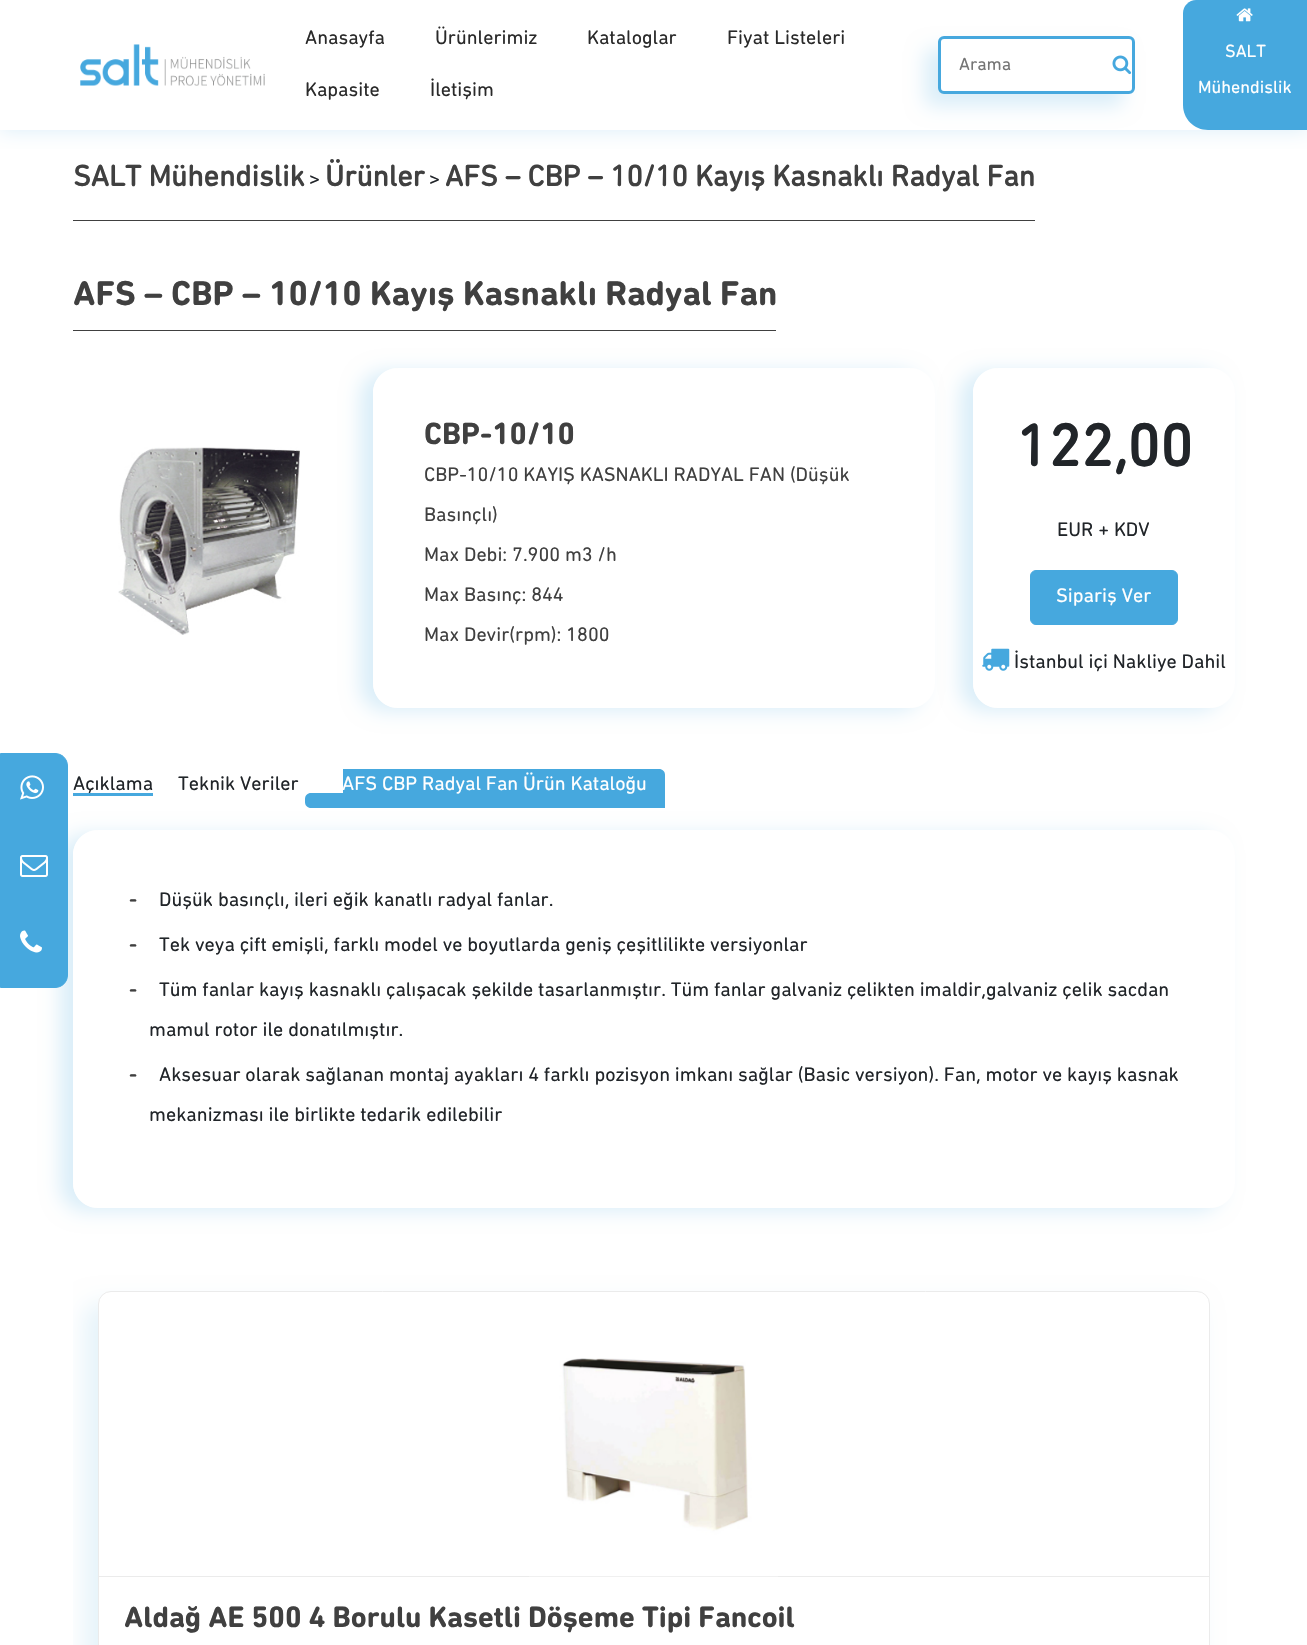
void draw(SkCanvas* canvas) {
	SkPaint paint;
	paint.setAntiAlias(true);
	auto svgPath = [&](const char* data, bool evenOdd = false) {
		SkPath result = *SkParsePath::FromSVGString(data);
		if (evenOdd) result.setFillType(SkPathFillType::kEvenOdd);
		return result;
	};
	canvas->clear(0xffffffff);
	canvas->save();
	canvas->clipRect(SkRect::MakeXYWH(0, 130, 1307, 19));
	paint.setColor(0xffdaeef9);
	paint.setMaskFilter(SkMaskFilter::MakeBlur(kNormal_SkBlurStyle, 9.5));
	canvas->drawRect(SkRect::MakeXYWH(0, 0, 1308, 130), paint);
	paint.setMaskFilter(nullptr);
	canvas->restore();
	canvas->drawImageRect(SkImages::DeferredFromEncodedData(SkData::MakeFromFileName("img1.png")), SkRect::MakeXYWH(80, 44, 185, 42), SkSamplingOptions());
	SkFont f1(fontMgr->matchFamilyStyle("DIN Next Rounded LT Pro", SkFontStyle::Normal()), 20);
	f1.setSubpixel(true);
	paint.setColor(0xff2a2a2a);
	canvas->drawString("Anasayfa", 305, 44, f1, paint);
	canvas->drawString("Ürünlerimiz", 435, 44, f1, paint);
	canvas->drawString("Kataloglar", 587, 44, f1, paint);
	canvas->drawString("Fiyat Listeleri", 727, 44, f1, paint);
	canvas->drawString("Kapasite", 305, 96, f1, paint);
	canvas->drawString("İletişim", 430, 96, f1, paint);
	paint.setColor(0xffdaeef9);
	paint.setMaskFilter(SkMaskFilter::MakeBlur(kNormal_SkBlurStyle, 9.5));
	canvas->drawRoundRect(SkRect::MakeXYWH(925, 49, 198, 57), 6, 6, paint);
	paint.setMaskFilter(nullptr);
	paint.setColor(0xffffffff);
	canvas->drawRoundRect(SkRect::MakeXYWH(939.5, 37.5, 194, 55), 4.5, 4.5, paint);
	paint.setStroke(true);
	paint.setStrokeWidth(3);
	paint.setColor(0xff46a8de);
	canvas->drawRoundRect(SkRect::MakeXYWH(939.5, 37.5, 194, 55), 4.5, 4.5, paint);
	SkFont f2(fontMgr->matchFamilyStyle("DIN Next Rounded LT Pro", SkFontStyle::Normal()), 18);
	f2.setSubpixel(true);
	paint.setStroke(false);
	paint.setColor(0xff757575);
	canvas->drawString("Arama", 959, 70, f2, paint);
	canvas->drawImageRect(SkImages::DeferredFromEncodedData(SkData::MakeFromFileName("img2.png")), SkRect::MakeXYWH(1112, 55, 20, 20), SkSamplingOptions());
	paint.setColor(0xff46a8de);
	canvas->drawPath(svgPath("M1196 0H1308V130H1208C1194 130 1183 119 1183 105V13C1183 6 1189 0 1196 0Z"), paint);
	canvas->drawImageRect(SkImages::DeferredFromEncodedData(SkData::MakeFromFileName("img3.png")), SkRect::MakeXYWH(1236, 8, 17, 14), SkSamplingOptions());
	paint.setColor(0xffffffff);
	canvas->drawString("SALT", 1225, 57, f2, paint);
	canvas->drawString("Mühendislik", 1198, 93, f2, paint);
	canvas->save();
	canvas->clipPath(svgPath("M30 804H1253V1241H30ZM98 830H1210C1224 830 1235 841 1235 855V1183C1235 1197 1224 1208 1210 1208H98C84 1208 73 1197 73 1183V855C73 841 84 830 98 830Z", true), true);
	paint.setColor(0xffdaeef9);
	paint.setMaskFilter(SkMaskFilter::MakeBlur(kNormal_SkBlurStyle, 9.5));
	canvas->drawRoundRect(SkRect::MakeXYWH(60, 834, 1163, 377), 25, 25, paint);
	paint.setMaskFilter(nullptr);
	canvas->restore();
	paint.setColor(0xff46a8de);
	canvas->drawPath(svgPath("M.5 753.5H55C62 753.5 67.5 759 67.5 766V975C67.5 982 62 987.5 55 987.5H.5Z"), paint);
	paint.setStroke(true);
	paint.setStrokeWidth(1);
	canvas->drawPath(svgPath("M.5 753.5H55C62 753.5 67.5 759 67.5 766V975C67.5 982 62 987.5 55 987.5H.5Z"), paint);
	canvas->drawImageRect(SkImages::DeferredFromEncodedData(SkData::MakeFromFileName("img4.png")), SkRect::MakeXYWH(20, 775, 24, 25), SkSamplingOptions());
	canvas->drawImageRect(SkImages::DeferredFromEncodedData(SkData::MakeFromFileName("img5.png")), SkRect::MakeXYWH(20, 855, 28, 22), SkSamplingOptions());
	canvas->drawImageRect(SkImages::DeferredFromEncodedData(SkData::MakeFromFileName("img6.png")), SkRect::MakeXYWH(20, 930, 22, 23), SkSamplingOptions());
	SkFont f3(fontMgr->matchFamilyStyle("DIN Next Rounded LT Pro", SkFontStyle::Bold()), 30);
	f3.setSubpixel(true);
	paint.setStroke(false);
	paint.setColor(0xff404040);
	canvas->drawString("SALT Mühendislik", 73, 186, f3, paint);
	SkFont f4(fontMgr->matchFamilyStyle("Roboto", SkFontStyle::Normal()), 20);
	f4.setSubpixel(true);
	paint.setColor(0xff212529);
	canvas->drawString(">", 309, 186, f4, paint);
	paint.setColor(0xff404040);
	canvas->drawString("Ürünler", 325, 186, f3, paint);
	paint.setColor(0xff212529);
	canvas->drawString(">", 429, 186, f4, paint);
	paint.setColor(0xff404040);
	canvas->drawString("AFS – CBP – 10/10 Kayış Kasnaklı Radyal Fan", 445, 186, f3, paint);
	canvas->drawRect(SkRect::MakeXYWH(73, 220, 962, 1), paint);
	SkFont f5(fontMgr->matchFamilyStyle("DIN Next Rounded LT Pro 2", SkFontStyle::Bold()), 35);
	f5.setSubpixel(true);
	canvas->drawString("AFS – CBP – 10/10 Kayış Kasnaklı Radyal Fan", 73, 305, f5, paint);
	canvas->drawRect(SkRect::MakeXYWH(73, 330, 703, 1), paint);
	canvas->drawImageRect(SkImages::DeferredFromEncodedData(SkData::MakeFromFileName("img7.png")), SkRect::MakeXYWH(118, 447, 182, 188), SkSamplingOptions());
	canvas->save();
	canvas->clipPath(svgPath("M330 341H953V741H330ZM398 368H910C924 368 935 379 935 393V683C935 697 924 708 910 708H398C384 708 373 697 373 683V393C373 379 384 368 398 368Z", true), true);
	paint.setColor(0xffdaeef9);
	paint.setMaskFilter(SkMaskFilter::MakeBlur(kNormal_SkBlurStyle, 9.5));
	canvas->drawRoundRect(SkRect::MakeXYWH(360, 371, 563, 340), 25, 25, paint);
	paint.setMaskFilter(nullptr);
	canvas->restore();
	paint.setStroke(true);
	paint.setColor(0xffffffff);
	canvas->drawRoundRect(SkRect::MakeXYWH(373.5, 368.5, 561, 339), 24.5, 24.5, paint);
	SkFont f6(fontMgr->matchFamilyStyle("DIN Next Rounded LT Pro 2", SkFontStyle::Bold()), 31.25);
	f6.setSubpixel(true);
	paint.setStroke(false);
	paint.setColor(0xff404040);
	canvas->drawString("CBP-10/10", 424, 444, f6, paint);
	canvas->drawString("CBP-10/10 KAYIŞ KASNAKLI RADYAL FAN (Düşük", 424, 481, f1, paint);
	canvas->drawString("Basınçlı)", 424, 521, f1, paint);
	canvas->drawString("Max Debi: 7.900 m3 /h", 424, 561, f1, paint);
	canvas->drawString("Max Basınç: 844", 424, 601, f1, paint);
	canvas->drawString("Max Devir(rpm): 1800", 424, 641, f1, paint);
	canvas->save();
	canvas->clipPath(svgPath("M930 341H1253V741H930ZM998 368H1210C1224 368 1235 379 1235 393V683C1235 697 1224 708 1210 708H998C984 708 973 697 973 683V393C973 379 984 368 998 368Z", true), true);
	paint.setColor(0xffdaeef9);
	paint.setMaskFilter(SkMaskFilter::MakeBlur(kNormal_SkBlurStyle, 9.5));
	canvas->drawRoundRect(SkRect::MakeXYWH(960, 371, 263, 340), 25, 25, paint);
	paint.setMaskFilter(nullptr);
	canvas->restore();
	paint.setStroke(true);
	paint.setColor(0xffffffff);
	canvas->drawRoundRect(SkRect::MakeXYWH(973.5, 368.5, 261, 339), 24.5, 24.5, paint);
	SkFont f7(fontMgr->matchFamilyStyle("DIN Next Rounded LT Pro", SkFontStyle::Bold()), 60);
	f7.setSubpixel(true);
	paint.setStroke(false);
	paint.setColor(0xff212529);
	canvas->drawString("122,00", 1016, 466, f7, paint);
	canvas->drawString("EUR + KDV", 1057, 536, f1, paint);
	paint.setColor(0xff46a8de);
	canvas->drawRoundRect(SkRect::MakeXYWH(1030.5, 570.5, 147, 54), 5.5, 5.5, paint);
	paint.setStroke(true);
	canvas->drawRoundRect(SkRect::MakeXYWH(1030.5, 570.5, 147, 54), 5.5, 5.5, paint);
	paint.setStroke(false);
	paint.setColor(0xffffffff);
	canvas->drawString("Sipariş Ver", 1056, 602, f1, paint);
	canvas->drawImageRect(SkImages::DeferredFromEncodedData(SkData::MakeFromFileName("img8.png")), SkRect::MakeXYWH(982, 648, 28, 23), SkSamplingOptions());
	paint.setColor(0xff212529);
	canvas->drawString("İstanbul içi Nakliye Dahil", 1014, 668, f1, paint);
	canvas->drawString("Açıklama", 73, 790, f1, paint);
	paint.setColor(0xff46a8de);
	canvas->drawRect(SkRect::MakeXYWH(73, 793, 80, 3), paint);
	paint.setColor(0xff212529);
	canvas->drawString("Teknik Veriler", 178, 790, f1, paint);
	paint.setColor(0xff46a8de);
	canvas->drawPath(svgPath("M311 793H665V808H311C307.5 808 305 805.5 305 802V799C305 795.5 307.5 793 311 793Z"), paint);
	canvas->drawPath(svgPath("M343 769H659C662.5 769 665 771.5 665 775V795C665 798.5 662.5 801 659 801H343Z"), paint);
	paint.setColor(0xffffffff);
	canvas->drawString("AFS CBP Radyal Fan Ürün Kataloğu", 342, 790, f1, paint);
	paint.setStroke(true);
	canvas->drawRoundRect(SkRect::MakeXYWH(73.5, 830.5, 1161, 377), 24.5, 24.5, paint);
	SkFont f8(fontMgr->matchFamilyStyle("DIN Next Rounded LT Pro", SkFontStyle::Bold()), 20);
	f8.setSubpixel(true);
	paint.setStroke(false);
	paint.setColor(0xff404040);
	canvas->drawString("-", 129, 906, f8, paint);
	paint.setColor(0xff212529);
	canvas->drawString("Düşük basınçlı, ileri eğik kanatlı radyal fanlar.", 159, 906, f1, paint);
	paint.setColor(0xff404040);
	canvas->drawString("-", 129, 951, f8, paint);
	paint.setColor(0xff212529);
	canvas->drawString("Tek veya çift emişli, farklı model ve boyutlarda geniş çeşitlilikte versiyonlar", 159, 951, f1, paint);
	paint.setColor(0xff404040);
	canvas->drawString("-", 129, 996, f8, paint);
	paint.setColor(0xff212529);
	canvas->drawString("Tüm fanlar kayış kasnaklı çalışacak şekilde tasarlanmıştır. Tüm fanlar galvaniz çelikten imaldir,galvaniz çelik sacdan", 159, 996, f1, paint);
	canvas->drawString("mamul rotor ile donatılmıştır.", 149, 1036, f1, paint);
	paint.setColor(0xff404040);
	canvas->drawString("-", 129, 1081, f8, paint);
	paint.setColor(0xff212529);
	canvas->drawString("Aksesuar olarak sağlanan montaj ayakları 4 farklı pozisyon imkanı sağlar (Basic versiyon). Fan, motor ve kayış kasnak", 159, 1081, f1, paint);
	canvas->drawString("mekanizması ile birlikte tedarik edilebilir", 149, 1121, f1, paint);
	canvas->save();
	canvas->clipRect(SkRect::MakeXYWH(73, 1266, 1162, 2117));
	canvas->clipPath(svgPath("M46 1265H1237V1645H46ZM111 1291H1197C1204 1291 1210 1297 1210 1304V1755C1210 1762 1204 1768 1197 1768H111C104 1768 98 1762 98 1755V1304C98 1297 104 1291 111 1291Z", true), true);
	paint.setColor(0xffe5f3fa);
	paint.setMaskFilter(SkMaskFilter::MakeBlur(kNormal_SkBlurStyle, 12.5));
	canvas->drawRoundRect(SkRect::MakeXYWH(85, 1304, 1113, 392), 13, 13, paint);
	paint.setMaskFilter(nullptr);
	canvas->restore();
	paint.setStroke(true);
	paint.setColor(0xffebebeb);
	canvas->drawRoundRect(SkRect::MakeXYWH(98.5, 1291.5, 1111, 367), 12.5, 12.5, paint);
	paint.setStroke(false);
	canvas->drawRect(SkRect::MakeXYWH(99, 1576, 1110, 1), paint);
	canvas->drawImageRect(SkImages::DeferredFromEncodedData(SkData::MakeFromFileName("img9.png")), SkRect::MakeXYWH(529, 1358, 249, 219), SkSamplingOptions());
	SkFont f9(fontMgr->matchFamilyStyle("DIN Next Rounded LT Pro 2", SkFontStyle::Bold()), 30);
	f9.setSubpixel(true);
	paint.setColor(0xff404040);
	canvas->drawString("Aldağ AE 500 4 Borulu Kasetli Döşeme Tipi Fancoil", 124, 1627, f9, paint);
}
